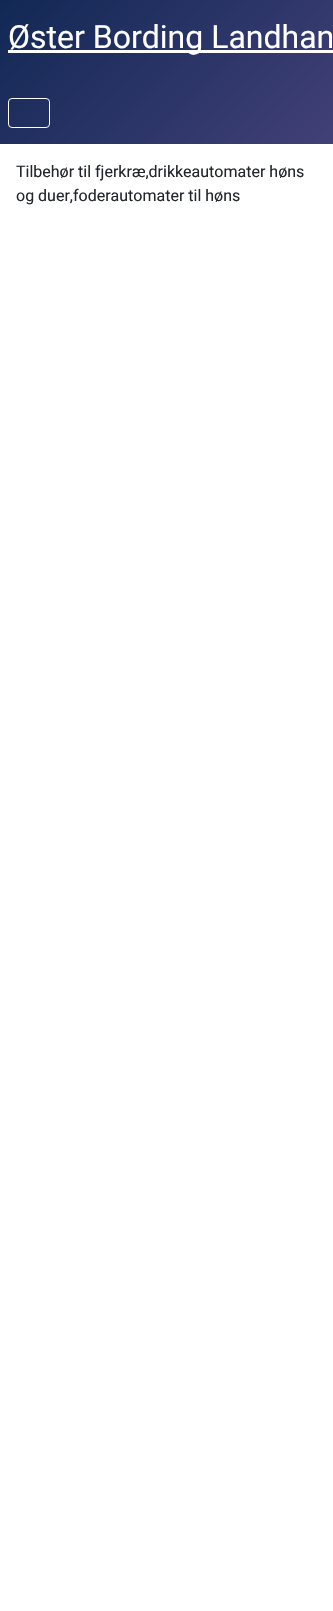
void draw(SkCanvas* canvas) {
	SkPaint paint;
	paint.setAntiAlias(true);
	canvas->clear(0xffffffff);
	{
		const SkColor colors[] = {0xff112855, 0xff424077};
		const float stops[] = {0, 1};
		const SkPoint ends[] = {{47, -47}, {286, 191}};
		paint.setShader(SkGradientShader::MakeLinear(ends, colors, stops, 2, SkTileMode::kClamp));
		paint.setAlpha(255);
	}
	canvas->drawRect(SkRect::MakeXYWH(0, 0, 333, 144), paint);
	paint.setShader(nullptr);
	paint.setColor(0xffffffff);
	canvas->drawRect(SkRect::MakeXYWH(8, 50, 325, 3), paint);
	SkFont f1(fontMgr->matchFamilyStyle("Roboto", SkFontStyle::Normal()), 32);
	f1.setSubpixel(true);
	canvas->drawString("Øster Bording Landhan", 8, 48, f1, paint);
	paint.setStroke(true);
	paint.setStrokeWidth(1);
	canvas->drawRoundRect(SkRect::MakeXYWH(8.5, 98.5, 41, 29), 3.5, 3.5, paint);
	SkFont f2(fontMgr->matchFamilyStyle("Roboto", SkFontStyle::Normal()), 16);
	f2.setSubpixel(true);
	paint.setStroke(false);
	paint.setColor(0xff22262a);
	canvas->drawString("Tilbehør til fjerkræ,drikkeautomater høns", 16, 177, f2, paint);
	canvas->drawString("og duer,foderautomater til høns", 16, 201, f2, paint);
}
